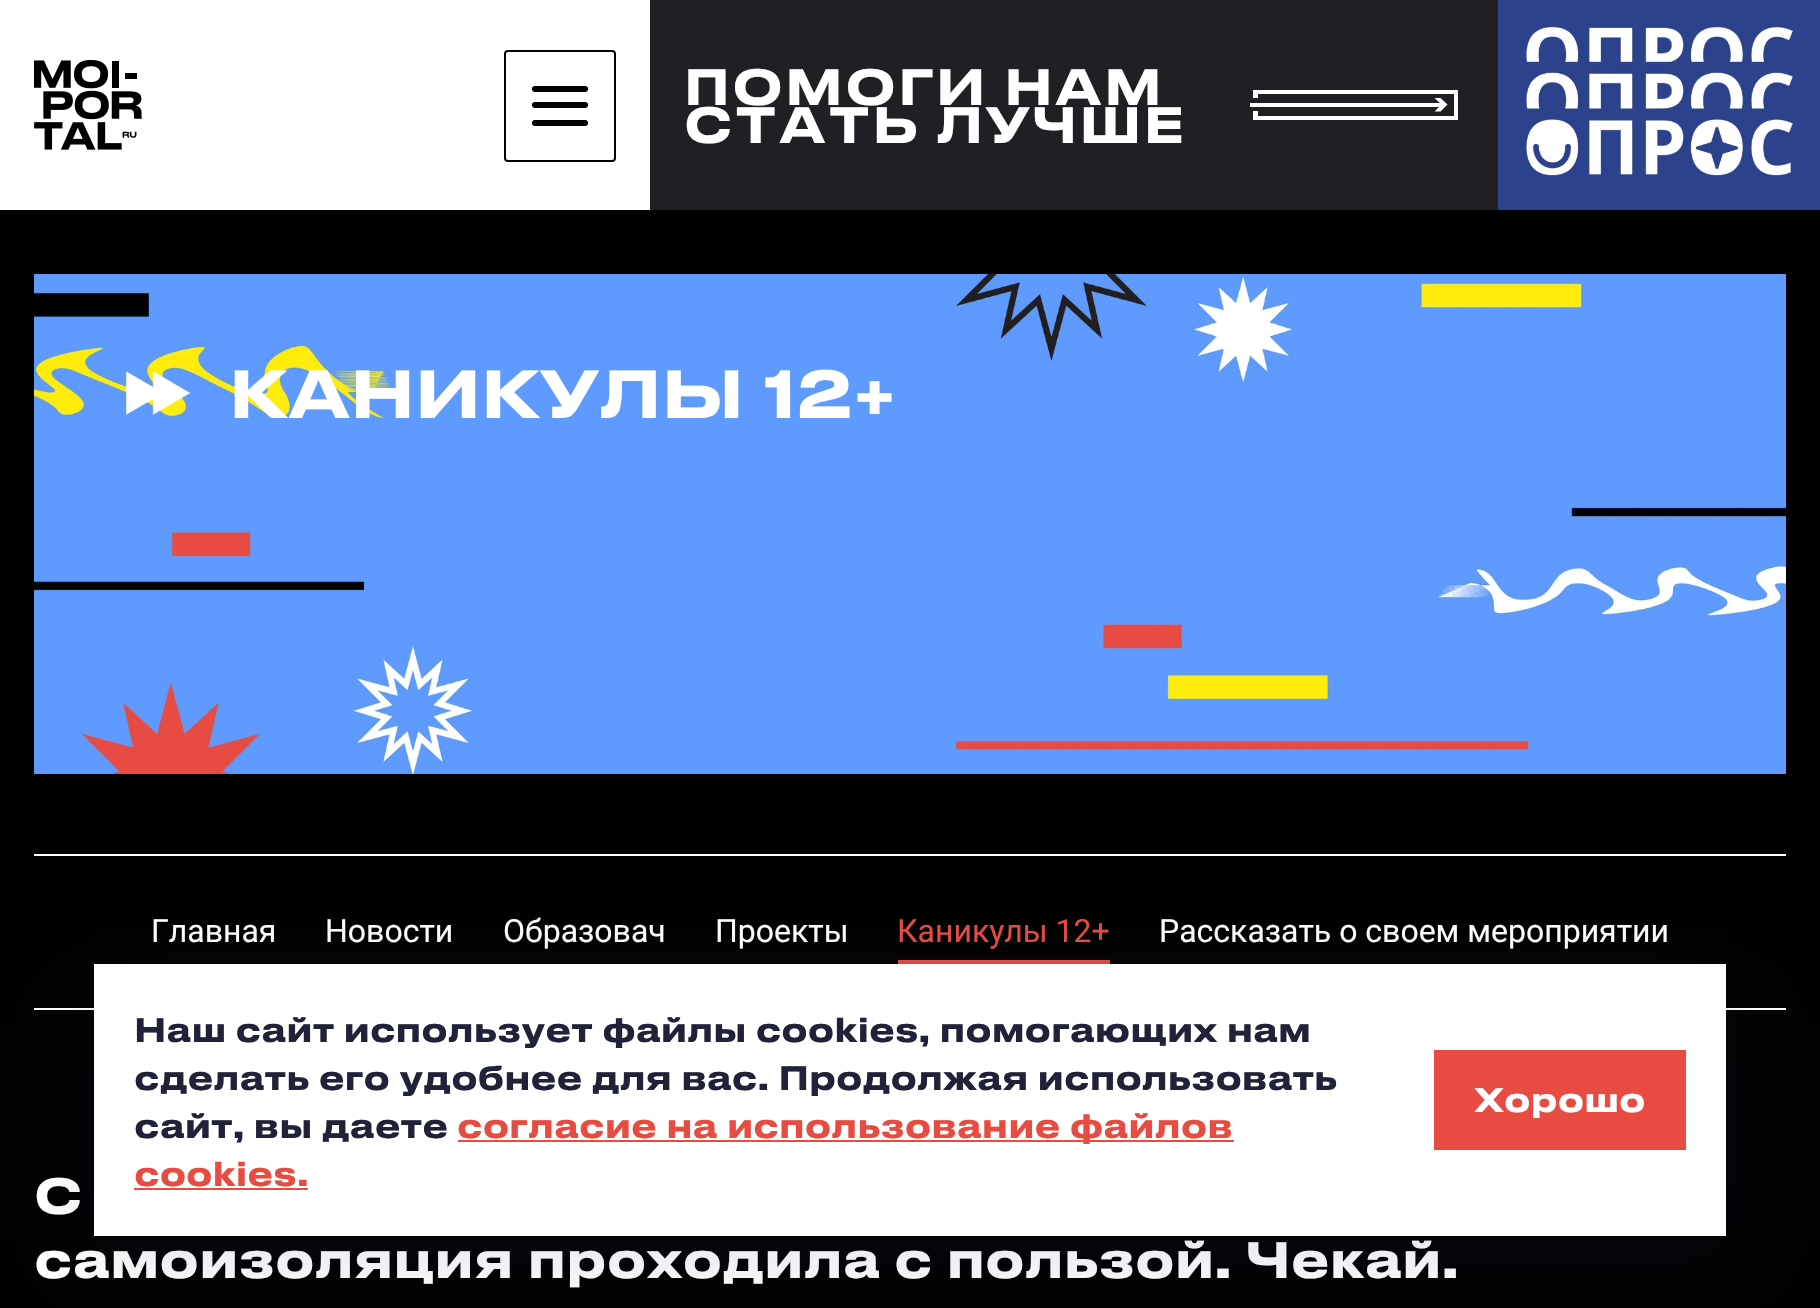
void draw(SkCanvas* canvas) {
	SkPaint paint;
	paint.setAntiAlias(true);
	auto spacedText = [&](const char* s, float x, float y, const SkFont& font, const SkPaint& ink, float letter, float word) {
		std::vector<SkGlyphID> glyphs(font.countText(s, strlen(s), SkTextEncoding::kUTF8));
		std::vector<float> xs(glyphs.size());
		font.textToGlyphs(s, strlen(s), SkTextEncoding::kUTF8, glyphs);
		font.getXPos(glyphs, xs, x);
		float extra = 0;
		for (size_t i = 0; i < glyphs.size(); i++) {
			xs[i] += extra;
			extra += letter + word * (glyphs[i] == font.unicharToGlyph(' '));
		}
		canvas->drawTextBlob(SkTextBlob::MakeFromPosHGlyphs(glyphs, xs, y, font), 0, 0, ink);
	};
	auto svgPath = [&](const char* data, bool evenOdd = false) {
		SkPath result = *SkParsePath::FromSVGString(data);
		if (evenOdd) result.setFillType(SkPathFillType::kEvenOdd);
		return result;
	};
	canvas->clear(0xff000000);
	paint.setColor(0xffffffff);
	canvas->drawRect(SkRect::MakeXYWH(0, 0, 650, 210), paint);
	canvas->drawImageRect(SkImages::DeferredFromEncodedData(SkData::MakeFromFileName("img1.png")), SkRect::MakeXYWH(34, 60, 108, 90), SkSamplingOptions());
	paint.setStroke(true);
	paint.setStrokeWidth(2);
	paint.setColor(0xff000000);
	canvas->drawRoundRect(SkRect::MakeXYWH(505, 51, 110, 110), 3, 3, paint);
	paint.setStroke(false);
	canvas->drawRoundRect(SkRect::MakeXYWH(532, 86, 56, 6), 3, 3, paint);
	canvas->drawRoundRect(SkRect::MakeXYWH(532, 102, 56, 6), 3, 3, paint);
	canvas->drawRoundRect(SkRect::MakeXYWH(532, 120, 56, 6), 3, 3, paint);
	paint.setColor(0xff201f24);
	canvas->drawRect(SkRect::MakeXYWH(650, 0, 848, 210), paint);
	SkFont f1(fontMgr->matchFamilyStyle("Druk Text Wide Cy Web", SkFontStyle(500, SkFontStyle::kNormal_Width, SkFontStyle::kUpright_Slant)), 48);
	f1.setSubpixel(true);
	paint.setColor(0xffffffff);
	spacedText("ПОМОГИ НАМ", 684, 105, f1, paint, 2.4, 0);
	spacedText("СТАТЬ ЛУЧШЕ", 684, 143, f1, paint, 2.4, 0);
	canvas->drawPath(svgPath("M1434.5 111.5L1441.5 104.5L1434.5 98H1440.5L1447.5 104.5L1440.5 111.5Z"), paint);
	canvas->drawPath(svgPath("M1458 120H1253V111H1258V116H1454V94H1258V98H1253V90H1458Z"), paint);
	canvas->drawPath(svgPath("M1250 103H1443V107H1250"), paint);
	canvas->drawImageRect(SkImages::DeferredFromEncodedData(SkData::MakeFromFileName("img2.png")), SkRect::MakeXYWH(1498, 0, 322, 210), SkSamplingOptions());
	canvas->drawImageRect(SkImages::DeferredFromEncodedData(SkData::MakeFromFileName("img3.png")), SkRect::MakeXYWH(34, 274, 1752, 500), SkSamplingOptions());
	canvas->drawImageRect(SkImages::DeferredFromEncodedData(SkData::MakeFromFileName("img4.png")), SkRect::MakeXYWH(126, 371, 64, 44), SkSamplingOptions());
	SkFont f2(fontMgr->matchFamilyStyle("Druk Text Wide Cy Web", SkFontStyle(500, SkFontStyle::kNormal_Width, SkFontStyle::kUpright_Slant)), 64);
	f2.setSubpixel(true);
	canvas->drawString("КАНИКУЛЫ 12+", 229, 418, f2, paint);
	canvas->drawRect(SkRect::MakeXYWH(34, 854, 1752, 2), paint);
	canvas->drawRect(SkRect::MakeXYWH(34, 1008, 1752, 2), paint);
	SkFont f3(fontMgr->matchFamilyStyle("Roboto", SkFontStyle::Normal()), 32);
	f3.setSubpixel(true);
	canvas->drawString("Главная", 151, 942, f3, paint);
	canvas->drawString("Новости", 325, 942, f3, paint);
	canvas->drawString("Образовач", 503, 942, f3, paint);
	canvas->drawString("Проекты", 715, 942, f3, paint);
	paint.setColor(0xffe84b41);
	canvas->drawRect(SkRect::MakeXYWH(898, 960, 212, 4), paint);
	canvas->drawString("Каникулы 12+", 897, 942, f3, paint);
	paint.setColor(0xffffffff);
	canvas->drawString("Рассказать о своем мероприятии", 1159, 942, f3, paint);
	canvas->drawString("С", 34, 1214, f1, paint);
	canvas->drawString("самоизоляция проходила с пользой. Чекай.", 34, 1278, f1, paint);
	paint.setColor(0x0d2d2d66);
	paint.setMaskFilter(SkMaskFilter::MakeBlur(kNormal_SkBlurStyle, 32));
	canvas->drawRect(SkRect::MakeXYWH(94, 1028, 1632, 272), paint);
	paint.setMaskFilter(nullptr);
	paint.setColor(0x1a2d2d66);
	paint.setMaskFilter(SkMaskFilter::MakeBlur(kNormal_SkBlurStyle, 32));
	canvas->drawRect(SkRect::MakeXYWH(94, 964, 1632, 272), paint);
	paint.setMaskFilter(nullptr);
	paint.setColor(0xffffffff);
	canvas->drawRect(SkRect::MakeXYWH(94, 964, 1632, 272), paint);
	SkFont f4(fontMgr->matchFamilyStyle("Druk Text Wide Cy Web", SkFontStyle(500, SkFontStyle::kNormal_Width, SkFontStyle::kUpright_Slant)), 32);
	f4.setSubpixel(true);
	paint.setColor(0xff1f2238);
	canvas->drawString("Наш сайт использует файлы cookies, помогающих нам", 134, 1042, f4, paint);
	canvas->drawString("сделать его удобнее для вас. Продолжая использовать", 134, 1090, f4, paint);
	canvas->drawString("сайт, вы даете", 134, 1138, f4, paint);
	paint.setColor(0xffe84b41);
	canvas->drawRect(SkRect::MakeXYWH(458, 1140, 776, 2), paint);
	canvas->drawString("согласие на использование файлов", 457, 1138, f4, paint);
	canvas->drawString("cookies.", 134, 1186, f4, paint);
	canvas->drawRect(SkRect::MakeXYWH(134, 1188, 174, 2), paint);
	canvas->drawRect(SkRect::MakeXYWH(1434, 1050, 252, 100), paint);
	paint.setColor(0xffffffff);
	canvas->drawString("Хорошо", 1474, 1112, f4, paint);
}
